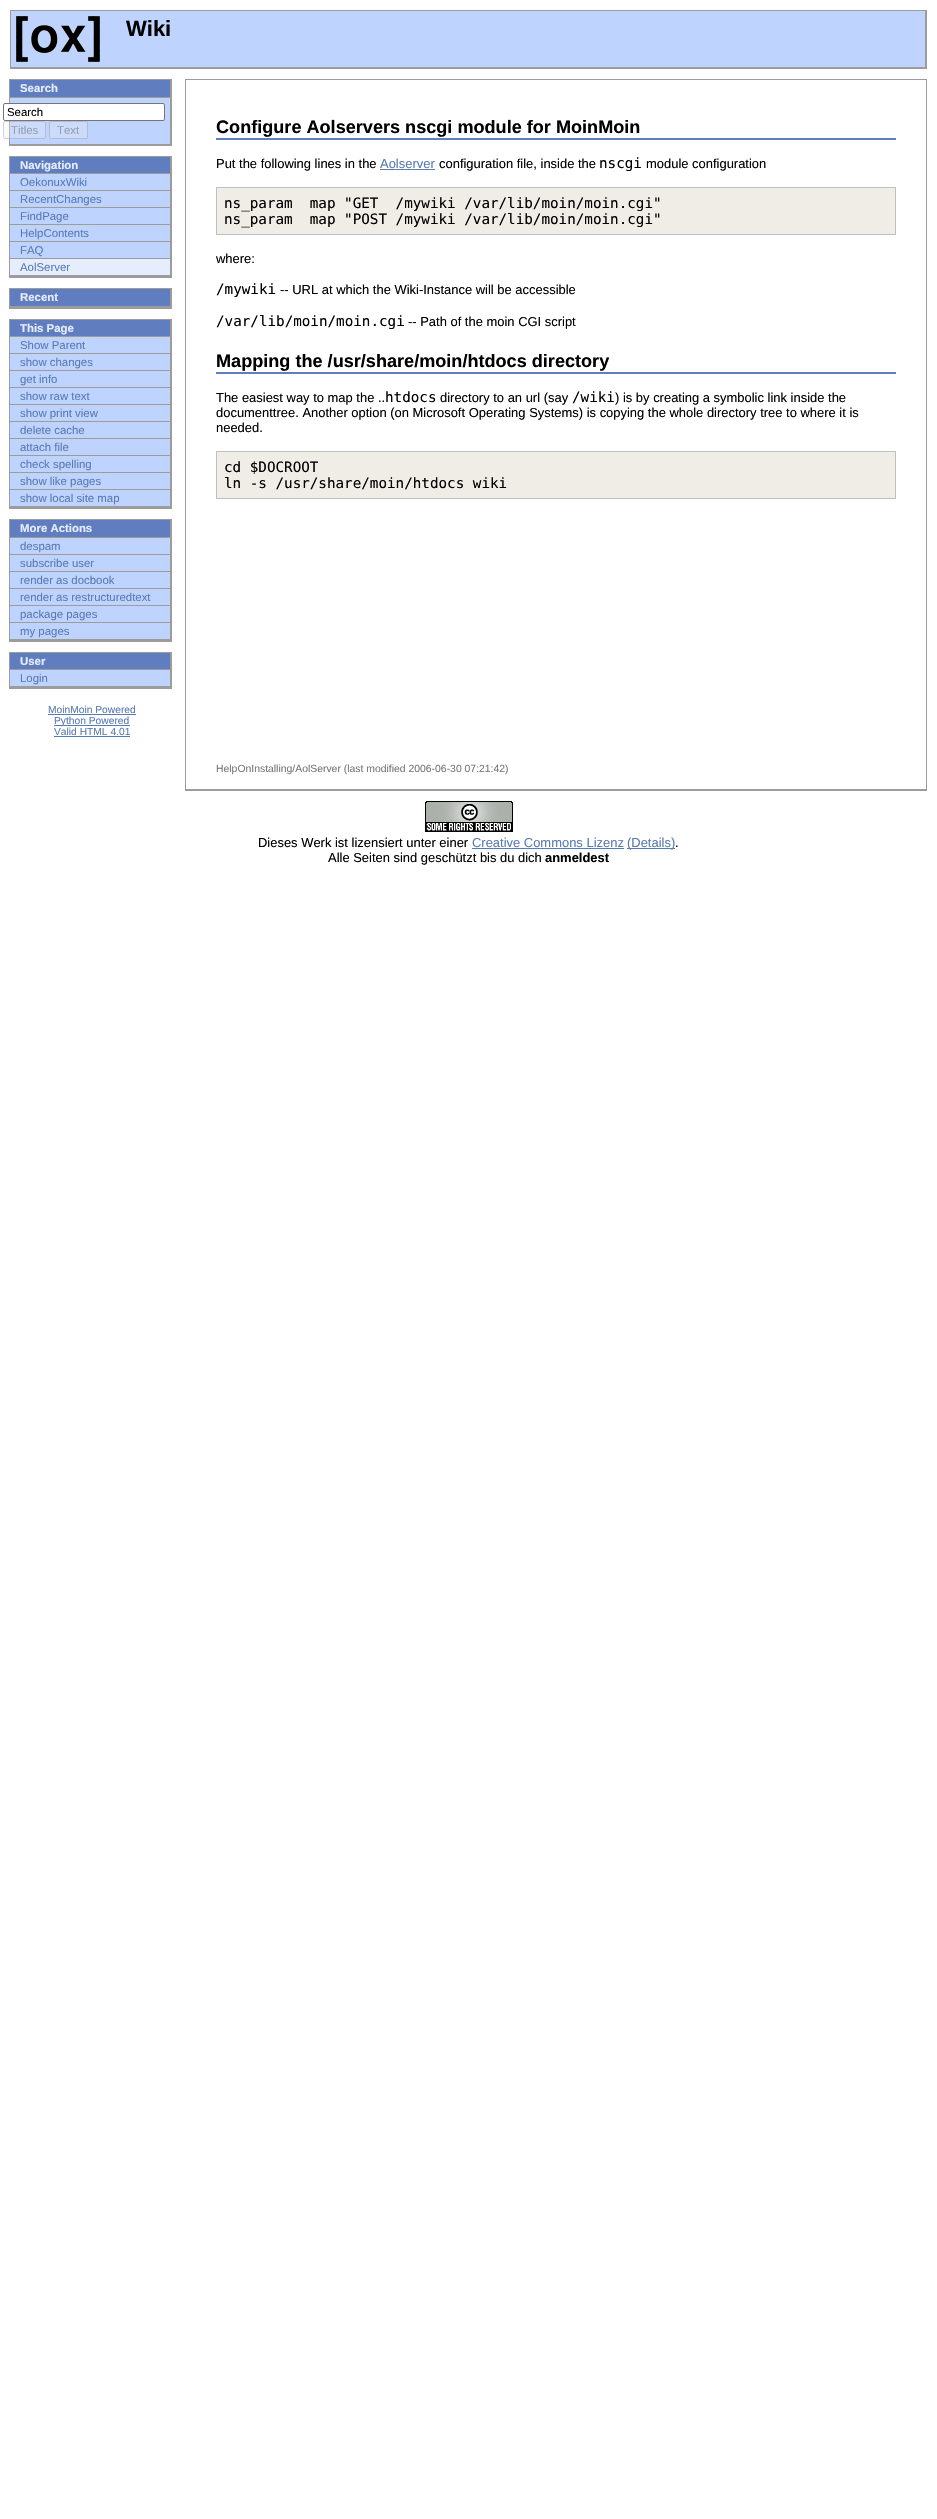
void draw(SkCanvas* canvas) {
	SkPaint paint;
	paint.setAntiAlias(true);
	canvas->clear(0xffffffff);
	paint.setColor(0xffbfd3ff);
	canvas->drawRect(SkRect::MakeXYWH(11, 11, 914, 56), paint);
	paint.setColor(0xff9c9c9c);
	canvas->drawRect(SkRect::MakeXYWH(10, 10, 917, 1), paint);
	canvas->drawRect(SkRect::MakeXYWH(925, 10, 2, 59), paint);
	canvas->drawRect(SkRect::MakeXYWH(10, 67, 917, 2), paint);
	canvas->drawRect(SkRect::MakeXYWH(10, 10, 1, 59), paint);
	canvas->drawImageRect(SkImages::DeferredFromEncodedData(SkData::MakeFromFileName("img1.png")), SkRect::MakeXYWH(16, 16, 84, 46), SkSamplingOptions());
	SkFont f1(fontMgr->matchFamilyStyle("Liberation Sans", SkFontStyle::Bold()), 22);
	f1.setSubpixel(true);
	paint.setColor(0xff000000);
	canvas->drawString("Wiki", 126, 36, f1, paint);
	paint.setColor(0xffbfd3ff);
	canvas->drawRect(SkRect::MakeXYWH(10, 98, 160, 46), paint);
	paint.setColor(0xff9c9c9c);
	canvas->drawRect(SkRect::MakeXYWH(9, 79, 163, 1), paint);
	canvas->drawRect(SkRect::MakeXYWH(170, 79, 2, 67), paint);
	canvas->drawRect(SkRect::MakeXYWH(9, 144, 163, 2), paint);
	canvas->drawRect(SkRect::MakeXYWH(9, 79, 1, 67), paint);
	paint.setColor(0xff607dbf);
	canvas->drawRect(SkRect::MakeXYWH(10, 80, 160, 17), paint);
	paint.setColor(0xff9c9c9c);
	canvas->drawRect(SkRect::MakeXYWH(10, 97, 160, 1), paint);
	SkFont f2(fontMgr->matchFamilyStyle("Liberation Sans", SkFontStyle::Bold()), 11.4);
	f2.setSubpixel(true);
	paint.setColor(0xffe6edff);
	canvas->drawString("Search", 20, 92, f2, paint);
	paint.setColor(0xffffffff);
	canvas->drawRoundRect(SkRect::MakeXYWH(3.5, 103.5, 161, 17), 1.5, 1.5, paint);
	paint.setStroke(true);
	paint.setStrokeWidth(1);
	paint.setColor(0xff767676);
	canvas->drawRoundRect(SkRect::MakeXYWH(3.5, 103.5, 161, 17), 1.5, 1.5, paint);
	SkFont f3(fontMgr->matchFamilyStyle("Liberation Sans", SkFontStyle::Normal()), 11.4);
	f3.setSubpixel(true);
	paint.setStroke(false);
	paint.setColor(0xff000000);
	canvas->drawString("Search", 7, 116, f3, paint);
	paint.setColor(0x4defefef);
	canvas->drawRoundRect(SkRect::MakeXYWH(3, 121, 43, 18), 2, 2, paint);
	paint.setStroke(true);
	paint.setColor(0x4d767676);
	canvas->drawRoundRect(SkRect::MakeXYWH(3.5, 121.5, 42, 17), 1.5, 1.5, paint);
	paint.setStroke(false);
	paint.setColor(0xff959eb4);
	canvas->drawString("Titles", 11, 134, f3, paint);
	paint.setColor(0xffcddbfa);
	canvas->drawRoundRect(SkRect::MakeXYWH(49.5, 121.5, 38, 17), 1.5, 1.5, paint);
	paint.setStroke(true);
	paint.setColor(0xffb3bdd2);
	canvas->drawRoundRect(SkRect::MakeXYWH(49.5, 121.5, 38, 17), 1.5, 1.5, paint);
	paint.setStroke(false);
	paint.setColor(0xff959eb4);
	canvas->drawString("Text", 57, 134, f3, paint);
	paint.setColor(0xffbfd3ff);
	canvas->drawRect(SkRect::MakeXYWH(10, 174, 160, 84), paint);
	paint.setColor(0xff9c9c9c);
	canvas->drawRect(SkRect::MakeXYWH(9, 156, 163, 1), paint);
	canvas->drawRect(SkRect::MakeXYWH(170, 156, 2, 122), paint);
	canvas->drawRect(SkRect::MakeXYWH(9, 276, 163, 2), paint);
	canvas->drawRect(SkRect::MakeXYWH(9, 156, 1, 122), paint);
	paint.setColor(0xff607dbf);
	canvas->drawRect(SkRect::MakeXYWH(10, 157, 160, 16), paint);
	paint.setColor(0xff9c9c9c);
	canvas->drawRect(SkRect::MakeXYWH(10, 173, 160, 1), paint);
	paint.setColor(0xffe6edff);
	canvas->drawString("Navigation", 20, 169, f2, paint);
	paint.setColor(0xff9c9c9c);
	canvas->drawRect(SkRect::MakeXYWH(10, 190, 160, 1), paint);
	paint.setColor(0xff597bb3);
	canvas->drawString("OekonuxWiki", 20, 186, f3, paint);
	paint.setColor(0xff9c9c9c);
	canvas->drawRect(SkRect::MakeXYWH(10, 207, 160, 1), paint);
	paint.setColor(0xff597bb3);
	canvas->drawString("RecentChanges", 20, 203, f3, paint);
	paint.setColor(0xff9c9c9c);
	canvas->drawRect(SkRect::MakeXYWH(10, 224, 160, 1), paint);
	paint.setColor(0xff597bb3);
	canvas->drawString("FindPage", 20, 220, f3, paint);
	paint.setColor(0xff9c9c9c);
	canvas->drawRect(SkRect::MakeXYWH(10, 241, 160, 1), paint);
	paint.setColor(0xff597bb3);
	canvas->drawString("HelpContents", 20, 237, f3, paint);
	paint.setColor(0xff9c9c9c);
	canvas->drawRect(SkRect::MakeXYWH(10, 258, 160, 1), paint);
	paint.setColor(0xff597bb3);
	canvas->drawString("FAQ", 20, 254, f3, paint);
	paint.setColor(0xffe6edff);
	canvas->drawRect(SkRect::MakeXYWH(10, 259, 160, 16), paint);
	paint.setColor(0xff9c9c9c);
	canvas->drawRect(SkRect::MakeXYWH(10, 275, 160, 1), paint);
	paint.setColor(0xff597bb3);
	canvas->drawString("AolServer", 20, 271, f3, paint);
	paint.setColor(0xff9c9c9c);
	canvas->drawRect(SkRect::MakeXYWH(9, 288, 163, 1), paint);
	canvas->drawRect(SkRect::MakeXYWH(170, 288, 2, 21), paint);
	canvas->drawRect(SkRect::MakeXYWH(9, 307, 163, 2), paint);
	canvas->drawRect(SkRect::MakeXYWH(9, 288, 1, 21), paint);
	paint.setColor(0xff607dbf);
	canvas->drawRect(SkRect::MakeXYWH(10, 289, 160, 17), paint);
	paint.setColor(0xff9c9c9c);
	canvas->drawRect(SkRect::MakeXYWH(10, 306, 160, 1), paint);
	paint.setColor(0xffe6edff);
	canvas->drawString("Recent", 20, 301, f2, paint);
	paint.setColor(0xffbfd3ff);
	canvas->drawRect(SkRect::MakeXYWH(10, 337, 160, 169), paint);
	paint.setColor(0xff9c9c9c);
	canvas->drawRect(SkRect::MakeXYWH(9, 319, 163, 1), paint);
	canvas->drawRect(SkRect::MakeXYWH(170, 319, 2, 190), paint);
	canvas->drawRect(SkRect::MakeXYWH(9, 507, 163, 2), paint);
	canvas->drawRect(SkRect::MakeXYWH(9, 319, 1, 190), paint);
	paint.setColor(0xff607dbf);
	canvas->drawRect(SkRect::MakeXYWH(10, 320, 160, 16), paint);
	paint.setColor(0xff9c9c9c);
	canvas->drawRect(SkRect::MakeXYWH(10, 336, 160, 1), paint);
	paint.setColor(0xffe6edff);
	canvas->drawString("This Page", 20, 332, f2, paint);
	paint.setColor(0xff9c9c9c);
	canvas->drawRect(SkRect::MakeXYWH(10, 353, 160, 1), paint);
	paint.setColor(0xff597bb3);
	canvas->drawString("Show Parent", 20, 349, f3, paint);
	paint.setColor(0xff9c9c9c);
	canvas->drawRect(SkRect::MakeXYWH(10, 370, 160, 1), paint);
	paint.setColor(0xff597bb3);
	canvas->drawString("show changes", 20, 366, f3, paint);
	paint.setColor(0xff9c9c9c);
	canvas->drawRect(SkRect::MakeXYWH(10, 387, 160, 1), paint);
	paint.setColor(0xff597bb3);
	canvas->drawString("get info", 20, 383, f3, paint);
	paint.setColor(0xff9c9c9c);
	canvas->drawRect(SkRect::MakeXYWH(10, 404, 160, 1), paint);
	paint.setColor(0xff597bb3);
	canvas->drawString("show raw text", 20, 400, f3, paint);
	paint.setColor(0xff9c9c9c);
	canvas->drawRect(SkRect::MakeXYWH(10, 421, 160, 1), paint);
	paint.setColor(0xff597bb3);
	canvas->drawString("show print view", 20, 417, f3, paint);
	paint.setColor(0xff9c9c9c);
	canvas->drawRect(SkRect::MakeXYWH(10, 438, 160, 1), paint);
	paint.setColor(0xff597bb3);
	canvas->drawString("delete cache", 20, 434, f3, paint);
	paint.setColor(0xff9c9c9c);
	canvas->drawRect(SkRect::MakeXYWH(10, 455, 160, 1), paint);
	paint.setColor(0xff597bb3);
	canvas->drawString("attach file", 20, 451, f3, paint);
	paint.setColor(0xff9c9c9c);
	canvas->drawRect(SkRect::MakeXYWH(10, 472, 160, 1), paint);
	paint.setColor(0xff597bb3);
	canvas->drawString("check spelling", 20, 468, f3, paint);
	paint.setColor(0xff9c9c9c);
	canvas->drawRect(SkRect::MakeXYWH(10, 489, 160, 1), paint);
	paint.setColor(0xff597bb3);
	canvas->drawString("show like pages", 20, 485, f3, paint);
	paint.setColor(0xff9c9c9c);
	canvas->drawRect(SkRect::MakeXYWH(10, 506, 160, 1), paint);
	paint.setColor(0xff597bb3);
	canvas->drawString("show local site map", 20, 502, f3, paint);
	paint.setColor(0xffbfd3ff);
	canvas->drawRect(SkRect::MakeXYWH(10, 538, 160, 101), paint);
	paint.setColor(0xff9c9c9c);
	canvas->drawRect(SkRect::MakeXYWH(9, 519, 163, 1), paint);
	canvas->drawRect(SkRect::MakeXYWH(170, 519, 2, 123), paint);
	canvas->drawRect(SkRect::MakeXYWH(9, 640, 163, 2), paint);
	canvas->drawRect(SkRect::MakeXYWH(9, 519, 1, 123), paint);
	paint.setColor(0xff607dbf);
	canvas->drawRect(SkRect::MakeXYWH(10, 520, 160, 17), paint);
	paint.setColor(0xff9c9c9c);
	canvas->drawRect(SkRect::MakeXYWH(10, 537, 160, 1), paint);
	paint.setColor(0xffe6edff);
	canvas->drawString("More Actions", 20, 532, f2, paint);
	paint.setColor(0xff9c9c9c);
	canvas->drawRect(SkRect::MakeXYWH(10, 554, 160, 1), paint);
	paint.setColor(0xff597bb3);
	canvas->drawString("despam", 20, 550, f3, paint);
	paint.setColor(0xff9c9c9c);
	canvas->drawRect(SkRect::MakeXYWH(10, 571, 160, 1), paint);
	paint.setColor(0xff597bb3);
	canvas->drawString("subscribe user", 20, 567, f3, paint);
	paint.setColor(0xff9c9c9c);
	canvas->drawRect(SkRect::MakeXYWH(10, 588, 160, 1), paint);
	paint.setColor(0xff597bb3);
	canvas->drawString("render as docbook", 20, 584, f3, paint);
	paint.setColor(0xff9c9c9c);
	canvas->drawRect(SkRect::MakeXYWH(10, 605, 160, 1), paint);
	paint.setColor(0xff597bb3);
	canvas->drawString("render as restructuredtext", 20, 601, f3, paint);
	paint.setColor(0xff9c9c9c);
	canvas->drawRect(SkRect::MakeXYWH(10, 622, 160, 1), paint);
	paint.setColor(0xff597bb3);
	canvas->drawString("package pages", 20, 618, f3, paint);
	paint.setColor(0xff9c9c9c);
	canvas->drawRect(SkRect::MakeXYWH(10, 639, 160, 1), paint);
	paint.setColor(0xff597bb3);
	canvas->drawString("my pages", 20, 635, f3, paint);
	paint.setColor(0xffbfd3ff);
	canvas->drawRect(SkRect::MakeXYWH(10, 670, 160, 16), paint);
	paint.setColor(0xff9c9c9c);
	canvas->drawRect(SkRect::MakeXYWH(9, 652, 163, 1), paint);
	canvas->drawRect(SkRect::MakeXYWH(170, 652, 2, 37), paint);
	canvas->drawRect(SkRect::MakeXYWH(9, 687, 163, 2), paint);
	canvas->drawRect(SkRect::MakeXYWH(9, 652, 1, 37), paint);
	paint.setColor(0xff607dbf);
	canvas->drawRect(SkRect::MakeXYWH(10, 653, 160, 16), paint);
	paint.setColor(0xff9c9c9c);
	canvas->drawRect(SkRect::MakeXYWH(10, 669, 160, 1), paint);
	paint.setColor(0xffe6edff);
	canvas->drawString("User", 20, 665, f2, paint);
	paint.setColor(0xff9c9c9c);
	canvas->drawRect(SkRect::MakeXYWH(10, 686, 160, 1), paint);
	paint.setColor(0xff597bb3);
	canvas->drawString("Login", 20, 682, f3, paint);
	SkFont f4(fontMgr->matchFamilyStyle("Liberation Sans", SkFontStyle::Normal()), 10.25);
	f4.setSubpixel(true);
	canvas->drawString("MoinMoin Powered", 48, 713, f4, paint);
	canvas->drawRect(SkRect::MakeXYWH(48, 714, 88, 1), paint);
	canvas->drawRect(SkRect::MakeXYWH(54, 725, 76, 1), paint);
	canvas->drawString("Python Powered", 54, 724, f4, paint);
	canvas->drawString("Valid HTML 4.01", 54, 735, f4, paint);
	canvas->drawRect(SkRect::MakeXYWH(54, 736, 76, 1), paint);
	paint.setColor(0xff9c9c9c);
	canvas->drawRect(SkRect::MakeXYWH(185, 79, 742, 1), paint);
	canvas->drawRect(SkRect::MakeXYWH(926, 79, 1, 712), paint);
	canvas->drawRect(SkRect::MakeXYWH(185, 789, 742, 2), paint);
	canvas->drawRect(SkRect::MakeXYWH(185, 79, 1, 712), paint);
	paint.setColor(0xff607dbf);
	canvas->drawRect(SkRect::MakeXYWH(216, 138, 680, 2), paint);
	SkFont f5(fontMgr->matchFamilyStyle("Liberation Sans", SkFontStyle::Bold()), 18.1);
	f5.setSubpixel(true);
	paint.setColor(0xff000000);
	canvas->drawString("Configure Aolservers nscgi module for MoinMoin", 216, 133, f5, paint);
	SkFont f6(fontMgr->matchFamilyStyle("Liberation Sans", SkFontStyle::Normal()), 12.95);
	f6.setSubpixel(true);
	canvas->drawString("Put the following lines in the", 216, 168, f6, paint);
	paint.setColor(0xff597bb3);
	canvas->drawString("Aolserver", 380, 168, f6, paint);
	canvas->drawRect(SkRect::MakeXYWH(380, 169, 55, 1), paint);
	paint.setColor(0xff000000);
	canvas->drawString("configuration file, inside the", 439, 168, f6, paint);
	SkFont f7(fontMgr->matchFamilyStyle("DejaVu Sans Mono", SkFontStyle::Normal()), 14.25);
	f7.setSubpixel(true);
	canvas->drawString("nscgi", 599, 168, f7, paint);
	canvas->drawString("module configuration", 646, 168, f6, paint);
	paint.setColor(0xfff0ece6);
	canvas->drawRect(SkRect::MakeXYWH(216.5, 187.5, 679, 47), paint);
	paint.setStroke(true);
	paint.setColor(0xffc0c0c0);
	canvas->drawRect(SkRect::MakeXYWH(216.5, 187.5, 679, 47), paint);
	paint.setStroke(false);
	paint.setColor(0xff000000);
	canvas->drawString("ns_param  map \"GET  /mywiki /var/lib/moin/moin.cgi\"", 224, 208, f7, paint);
	canvas->drawString("ns_param  map \"POST /mywiki /var/lib/moin/moin.cgi\"", 224, 224, f7, paint);
	canvas->drawString("where:", 216, 263, f6, paint);
	canvas->drawString("/mywiki", 216, 294, f7, paint);
	canvas->drawString("-- URL at which the Wiki-Instance will be accessible", 280, 294, f6, paint);
	canvas->drawString("/var/lib/moin/moin.cgi", 216, 326, f7, paint);
	canvas->drawString("-- Path of the moin CGI script", 408, 326, f6, paint);
	paint.setColor(0xff607dbf);
	canvas->drawRect(SkRect::MakeXYWH(216, 372, 680, 2), paint);
	paint.setColor(0xff000000);
	canvas->drawString("Mapping the /usr/share/moin/htdocs directory", 216, 367, f5, paint);
	canvas->drawString("The easiest way to map the ..", 216, 402, f6, paint);
	canvas->drawString("htdocs", 385, 402, f7, paint);
	canvas->drawString("directory to an url (say", 440, 402, f6, paint);
	canvas->drawString("/wiki", 572, 402, f7, paint);
	canvas->drawString(") is by creating a symbolic link inside the", 615, 402, f6, paint);
	canvas->drawString("documenttree. Another option (on Microsoft Operating Systems) is copying the whole directory tree to where it is", 216, 417, f6, paint);
	canvas->drawString("needed.", 216, 432, f6, paint);
	paint.setColor(0xfff0ece6);
	canvas->drawRect(SkRect::MakeXYWH(216.5, 451.5, 679, 47), paint);
	paint.setStroke(true);
	paint.setColor(0xffc0c0c0);
	canvas->drawRect(SkRect::MakeXYWH(216.5, 451.5, 679, 47), paint);
	paint.setStroke(false);
	paint.setColor(0xff000000);
	canvas->drawString("cd $DOCROOT", 224, 472, f7, paint);
	canvas->drawString("ln -s /usr/share/moin/htdocs wiki", 224, 488, f7, paint);
	SkFont f8(fontMgr->matchFamilyStyle("Liberation Sans", SkFontStyle::Normal()), 10.4);
	f8.setSubpixel(true);
	paint.setColor(0xff777777);
	canvas->drawString("HelpOnInstalling/AolServer (last modified 2006-06-30 07:21:42)", 216, 772, f8, paint);
	canvas->drawImageRect(SkImages::DeferredFromEncodedData(SkData::MakeFromFileName("img2.png")), SkRect::MakeXYWH(425, 801, 88, 31), SkSamplingOptions());
	paint.setColor(0xff000000);
	canvas->drawString("Dieses Werk ist lizensiert unter einer", 258, 847, f6, paint);
	paint.setColor(0xff597bb3);
	canvas->drawString("Creative Commons Lizenz", 472, 847, f6, paint);
	canvas->drawRect(SkRect::MakeXYWH(472, 848, 152, 1), paint);
	canvas->drawRect(SkRect::MakeXYWH(627, 848, 48, 1), paint);
	canvas->drawString("(Details)", 627, 847, f6, paint);
	paint.setColor(0xff000000);
	canvas->drawString(".", 675, 847, f6, paint);
	canvas->drawString("Alle Seiten sind geschützt bis du dich", 328, 862, f6, paint);
	SkFont f9(fontMgr->matchFamilyStyle("Liberation Sans", SkFontStyle::Bold()), 12.95);
	f9.setSubpixel(true);
	canvas->drawString("anmeldest", 545, 862, f9, paint);
}
